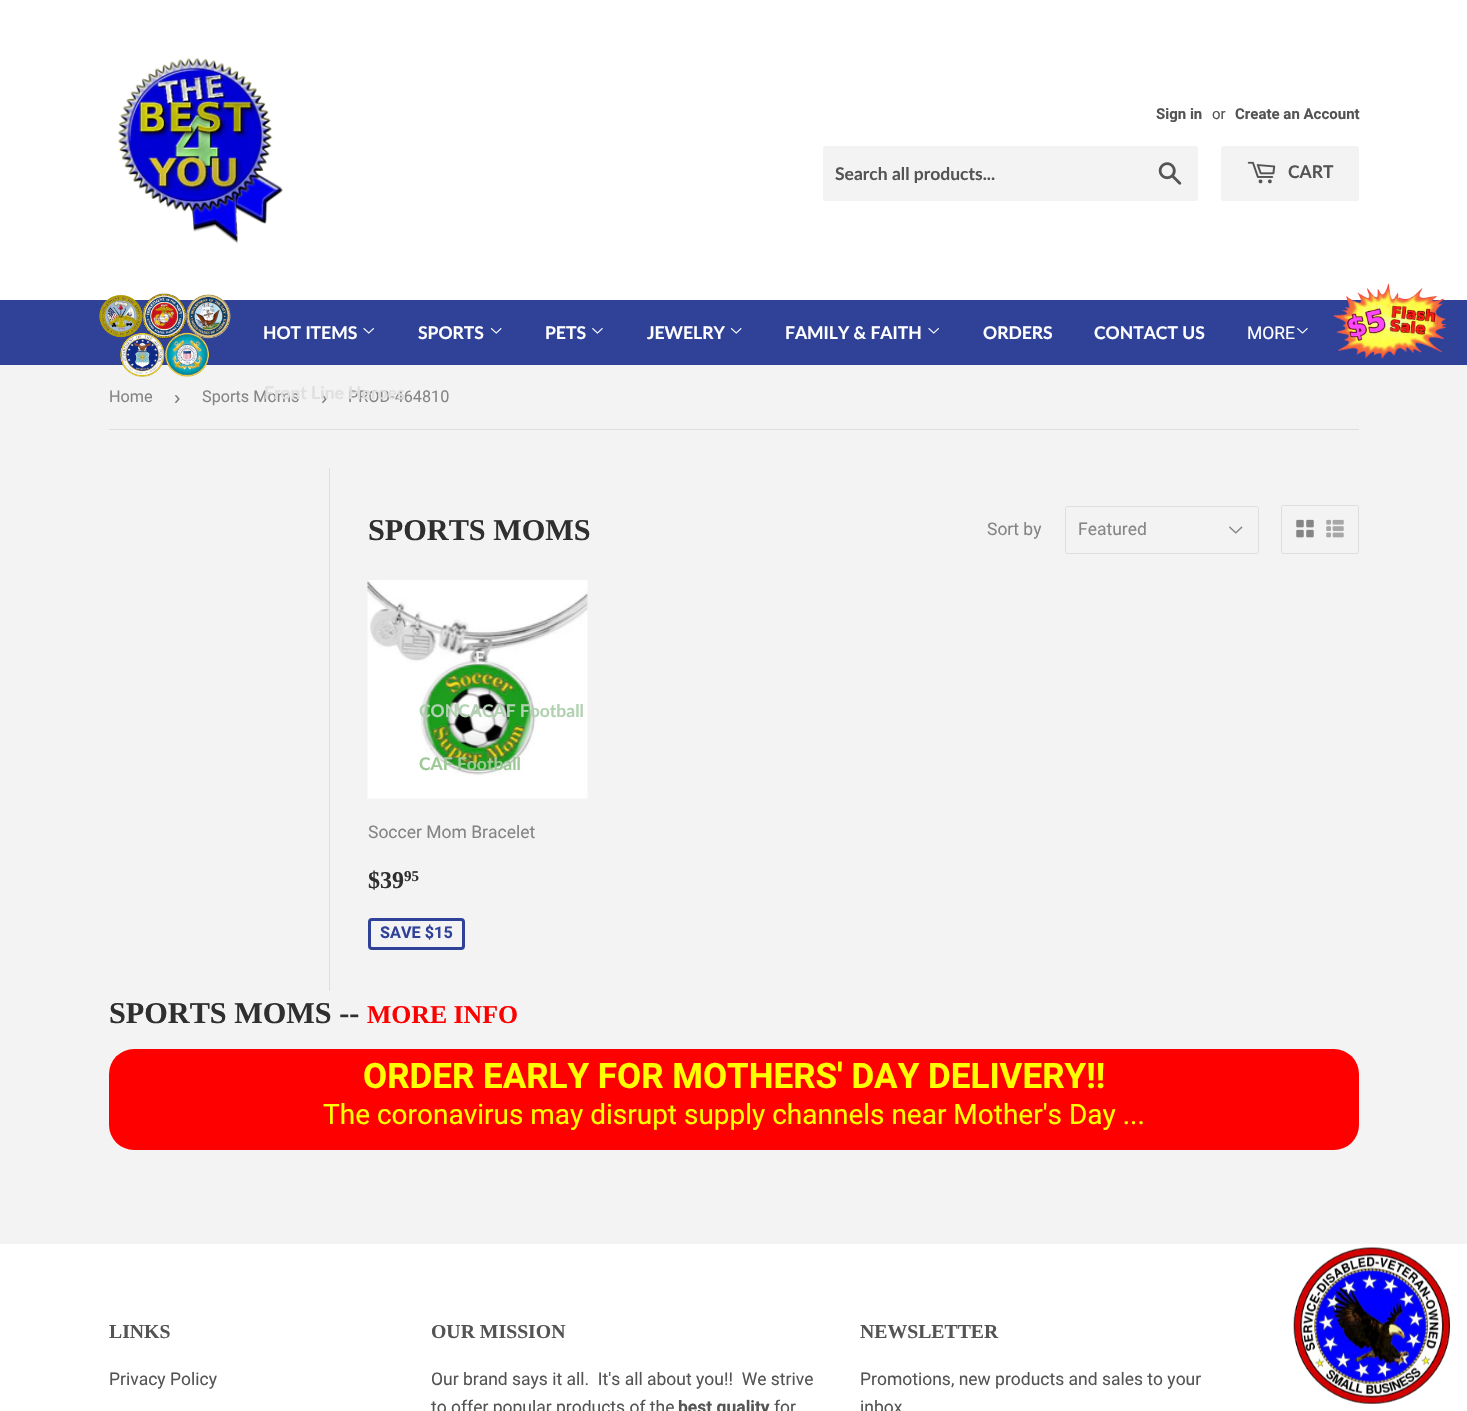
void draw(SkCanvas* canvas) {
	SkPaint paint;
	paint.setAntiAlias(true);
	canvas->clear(0xfff3f3f3);
	paint.setColor(0xffffffff);
	canvas->drawRect(SkRect::MakeXYWH(0, 0, 1467, 300), paint);
	canvas->drawImageRect(SkImages::DeferredFromEncodedData(SkData::MakeFromFileName("img1.png")), SkRect::MakeXYWH(118, 58, 165, 186), SkSamplingOptions());
	SkFont f1(fontMgr->matchFamilyStyle("Roboto", SkFontStyle::Bold()), 15);
	f1.setSubpixel(true);
	paint.setColor(0xff545454);
	canvas->drawString("Sign in", 1156, 119, f1, paint);
	SkFont f2(fontMgr->matchFamilyStyle("Roboto", SkFontStyle::Normal()), 15);
	f2.setSubpixel(true);
	canvas->drawString("or", 1212, 119, f2, paint);
	canvas->drawString("Create an Account", 1235, 119, f1, paint);
	paint.setColor(0xfff3f3f3);
	canvas->drawRoundRect(SkRect::MakeXYWH(823, 146, 375, 55), 2.5, 2.5, paint);
	SkFont f3(fontMgr->matchFamilyStyle("Lato", SkFontStyle::Bold()), 17.5);
	f3.setSubpixel(true);
	paint.setColor(0xff545454);
	canvas->drawString("Search all products...", 835, 180, f3, paint);
	canvas->drawImageRect(SkImages::DeferredFromEncodedData(SkData::MakeFromFileName("img2.png")), SkRect::MakeXYWH(1158, 162, 24, 23), SkSamplingOptions());
	paint.setColor(0xfff3f3f3);
	canvas->drawRoundRect(SkRect::MakeXYWH(1221, 146, 138, 55), 2.5, 2.5, paint);
	canvas->drawImageRect(SkImages::DeferredFromEncodedData(SkData::MakeFromFileName("img3.png")), SkRect::MakeXYWH(1247, 161, 29, 23), SkSamplingOptions());
	paint.setColor(0xff545454);
	canvas->drawString("CART", 1288, 178, f3, paint);
	paint.setColor(0xff2f4298);
	canvas->drawRect(SkRect::MakeXYWH(0, 300, 1467, 65), paint);
	canvas->drawImageRect(SkImages::DeferredFromEncodedData(SkData::MakeFromFileName("img4.png")), SkRect::MakeXYWH(99, 293, 132, 84), SkSamplingOptions());
	paint.setColor(0xffffffff);
	canvas->drawString("HOT ITEMS", 263, 339, f3, paint);
	canvas->drawImageRect(SkImages::DeferredFromEncodedData(SkData::MakeFromFileName("img5.png")), SkRect::MakeXYWH(363, 327, 11, 7), SkSamplingOptions());
	SkFont f4(fontMgr->matchFamilyStyle("Roboto", SkFontStyle::Normal()), 16.25);
	f4.setSubpixel(true);
	paint.setColor(0xff858585);
	canvas->drawString("Sports Moms", 202, 402, f4, paint);
	SkFont f5(fontMgr->matchFamilyStyle("Liberation Sans", SkFontStyle::Normal()), 19);
	f5.setSubpixel(true);
	paint.setColor(0xff767676);
	canvas->drawString("›", 321, 404, f5, paint);
	paint.setColor(0xff858585);
	canvas->drawString("PROD-464810", 348, 402, f4, paint);
	paint.setColor(0xffe0e0e0);
	canvas->drawString("Front Line Heroes", 264, 399, f3, paint);
	paint.setColor(0xffffffff);
	canvas->drawString("SPORTS", 418, 339, f3, paint);
	canvas->drawImageRect(SkImages::DeferredFromEncodedData(SkData::MakeFromFileName("img6.png")), SkRect::MakeXYWH(490, 327, 12, 7), SkSamplingOptions());
	canvas->drawImageRect(SkImages::DeferredFromEncodedData(SkData::MakeFromFileName("img12.png")), SkRect::MakeXYWH(367, 580, 221, 219), SkSamplingOptions());
	paint.setColor(0xfff2f2f2);
	canvas->drawString("E", 475, 664, f3, paint);
	paint.setColor(0xffb1d1b1);
	canvas->drawString("CONCACAF Football", 419, 717, f3, paint);
	paint.setColor(0xff9ec996);
	canvas->drawString("CAF Football", 419, 770, f3, paint);
	paint.setColor(0xffffffff);
	canvas->drawString("PETS", 545, 339, f3, paint);
	canvas->drawImageRect(SkImages::DeferredFromEncodedData(SkData::MakeFromFileName("img7.png")), SkRect::MakeXYWH(592, 327, 11, 7), SkSamplingOptions());
	canvas->drawString("JEWELRY", 647, 339, f3, paint);
	canvas->drawImageRect(SkImages::DeferredFromEncodedData(SkData::MakeFromFileName("img6.png")), SkRect::MakeXYWH(730, 327, 12, 7), SkSamplingOptions());
	canvas->drawString("FAMILY & FAITH", 785, 339, f3, paint);
	canvas->drawImageRect(SkImages::DeferredFromEncodedData(SkData::MakeFromFileName("img5.png")), SkRect::MakeXYWH(928, 327, 11, 7), SkSamplingOptions());
	canvas->drawString("ORDERS", 983, 339, f3, paint);
	canvas->drawString("CONTACT US", 1094, 339, f3, paint);
	SkFont f6(fontMgr->matchFamilyStyle("Roboto", SkFontStyle::Normal()), 17.5);
	f6.setSubpixel(true);
	canvas->drawString("MORE", 1247, 339, f6, paint);
	canvas->drawImageRect(SkImages::DeferredFromEncodedData(SkData::MakeFromFileName("img7.png")), SkRect::MakeXYWH(1297, 327, 11, 7), SkSamplingOptions());
	canvas->drawImageRect(SkImages::DeferredFromEncodedData(SkData::MakeFromFileName("img8.png")), SkRect::MakeXYWH(1333, 283, 113, 76), SkSamplingOptions());
	paint.setColor(0xffdedede);
	canvas->drawRect(SkRect::MakeXYWH(109, 429, 1250, 1), paint);
	paint.setColor(0xff858585);
	canvas->drawString("Home", 109, 402, f4, paint);
	paint.setColor(0xff767676);
	canvas->drawString("›", 174, 404, f5, paint);
	paint.setColor(0xffdedede);
	canvas->drawRect(SkRect::MakeXYWH(329, 468, 1, 523), paint);
	SkFont f7(fontMgr->matchFamilyStyle("Liberation Serif", SkFontStyle::Bold()), 30.25);
	f7.setSubpixel(true);
	paint.setColor(0xff2f2f2f);
	canvas->drawString("SPORTS MOMS", 368, 540, f7, paint);
	paint.setColor(0xff858585);
	canvas->drawString("Sort by", 987, 535, f6, paint);
	canvas->drawImageRect(SkImages::DeferredFromEncodedData(SkData::MakeFromFileName("img9.png")), SkRect::MakeXYWH(1229, 526, 14, 8), SkSamplingOptions());
	paint.setStroke(true);
	paint.setStrokeWidth(1);
	paint.setColor(0xffdedede);
	canvas->drawRoundRect(SkRect::MakeXYWH(1065.5, 506.5, 193, 47), 2, 2, paint);
	paint.setStroke(false);
	paint.setColor(0xff858585);
	canvas->drawString("Featured", 1078, 535, f6, paint);
	paint.setStroke(true);
	paint.setColor(0xffdedede);
	canvas->drawRoundRect(SkRect::MakeXYWH(1281.5, 505.5, 77, 48), 2, 2, paint);
	canvas->drawImageRect(SkImages::DeferredFromEncodedData(SkData::MakeFromFileName("img10.png")), SkRect::MakeXYWH(1296, 519, 18, 19), SkSamplingOptions());
	canvas->drawImageRect(SkImages::DeferredFromEncodedData(SkData::MakeFromFileName("img11.png")), SkRect::MakeXYWH(1326, 519, 18, 19), SkSamplingOptions());
	paint.setStroke(false);
	paint.setColor(0xff858585);
	canvas->drawString("Soccer Mom Bracelet", 368, 838, f6, paint);
	SkFont f8(fontMgr->matchFamilyStyle("Liberation Serif", SkFontStyle::Bold()), 24);
	f8.setSubpixel(true);
	paint.setColor(0xff2f2f2f);
	canvas->drawString("$39", 368, 888, f8, paint);
	SkFont f9(fontMgr->matchFamilyStyle("Liberation Serif", SkFontStyle::Bold()), 15);
	f9.setSubpixel(true);
	canvas->drawString("95", 404, 881, f9, paint);
	paint.setStroke(true);
	paint.setStrokeWidth(3);
	paint.setColor(0xff2f4298);
	canvas->drawRoundRect(SkRect::MakeXYWH(369.5, 919.5, 94, 29), 2.5, 2.5, paint);
	SkFont f10(fontMgr->matchFamilyStyle("Roboto", SkFontStyle::Bold()), 16.25);
	f10.setSubpixel(true);
	paint.setStroke(false);
	canvas->drawString("SAVE $15", 380, 938, f10, paint);
	paint.setColor(0xff2f2f2f);
	canvas->drawString("SPORTS MOMS --", 109, 1023, f7, paint);
	SkFont f11(fontMgr->matchFamilyStyle("Liberation Serif", SkFontStyle::Bold()), 25.75);
	f11.setSubpixel(true);
	paint.setColor(0xffff0000);
	canvas->drawString("MORE INFO", 367, 1023, f11, paint);
	canvas->drawRoundRect(SkRect::MakeXYWH(109, 1049, 1250, 101), 25, 25, paint);
	SkFont f12(fontMgr->matchFamilyStyle("Roboto", SkFontStyle::Bold()), 35);
	f12.setSubpixel(true);
	paint.setColor(0xffffff00);
	canvas->drawString("ORDER EARLY FOR MOTHERS' DAY DELIVERY!!", 363, 1088, f12, paint);
	SkFont f13(fontMgr->matchFamilyStyle("Roboto", SkFontStyle::Normal()), 28);
	f13.setSubpixel(true);
	canvas->drawString("The coronavirus may disrupt supply channels near Mother's Day ...", 323, 1124, f13, paint);
	paint.setColor(0xffffffff);
	canvas->drawRect(SkRect::MakeXYWH(0, 1244, 1467, 167), paint);
	SkFont f14(fontMgr->matchFamilyStyle("Liberation Serif", SkFontStyle::Bold()), 19.75);
	f14.setSubpixel(true);
	paint.setColor(0xff545454);
	canvas->drawString("LINKS", 109, 1338, f14, paint);
	canvas->drawString("Privacy Policy", 109, 1385, f6, paint);
	canvas->drawString("OUR MISSION", 431, 1338, f14, paint);
	canvas->drawString("Our brand says it all.  It's all about you!!  We strive", 431, 1385, f6, paint);
	canvas->drawString("to offer popular products of the", 431, 1413, f6, paint);
	SkFont f15(fontMgr->matchFamilyStyle("Roboto", SkFontStyle::Bold()), 17.5);
	f15.setSubpixel(true);
	canvas->drawString("best quality", 678, 1413, f15, paint);
	canvas->drawString("for", 774, 1413, f6, paint);
	canvas->drawString("NEWSLETTER", 860, 1338, f14, paint);
	canvas->drawString("Promotions, new products and sales to your", 860, 1385, f6, paint);
	canvas->drawString("inbox", 860, 1413, f6, paint);
	canvas->drawImageRect(SkImages::DeferredFromEncodedData(SkData::MakeFromFileName("img13.png")), SkRect::MakeXYWH(1293, 1247, 157, 157), SkSamplingOptions());
}
